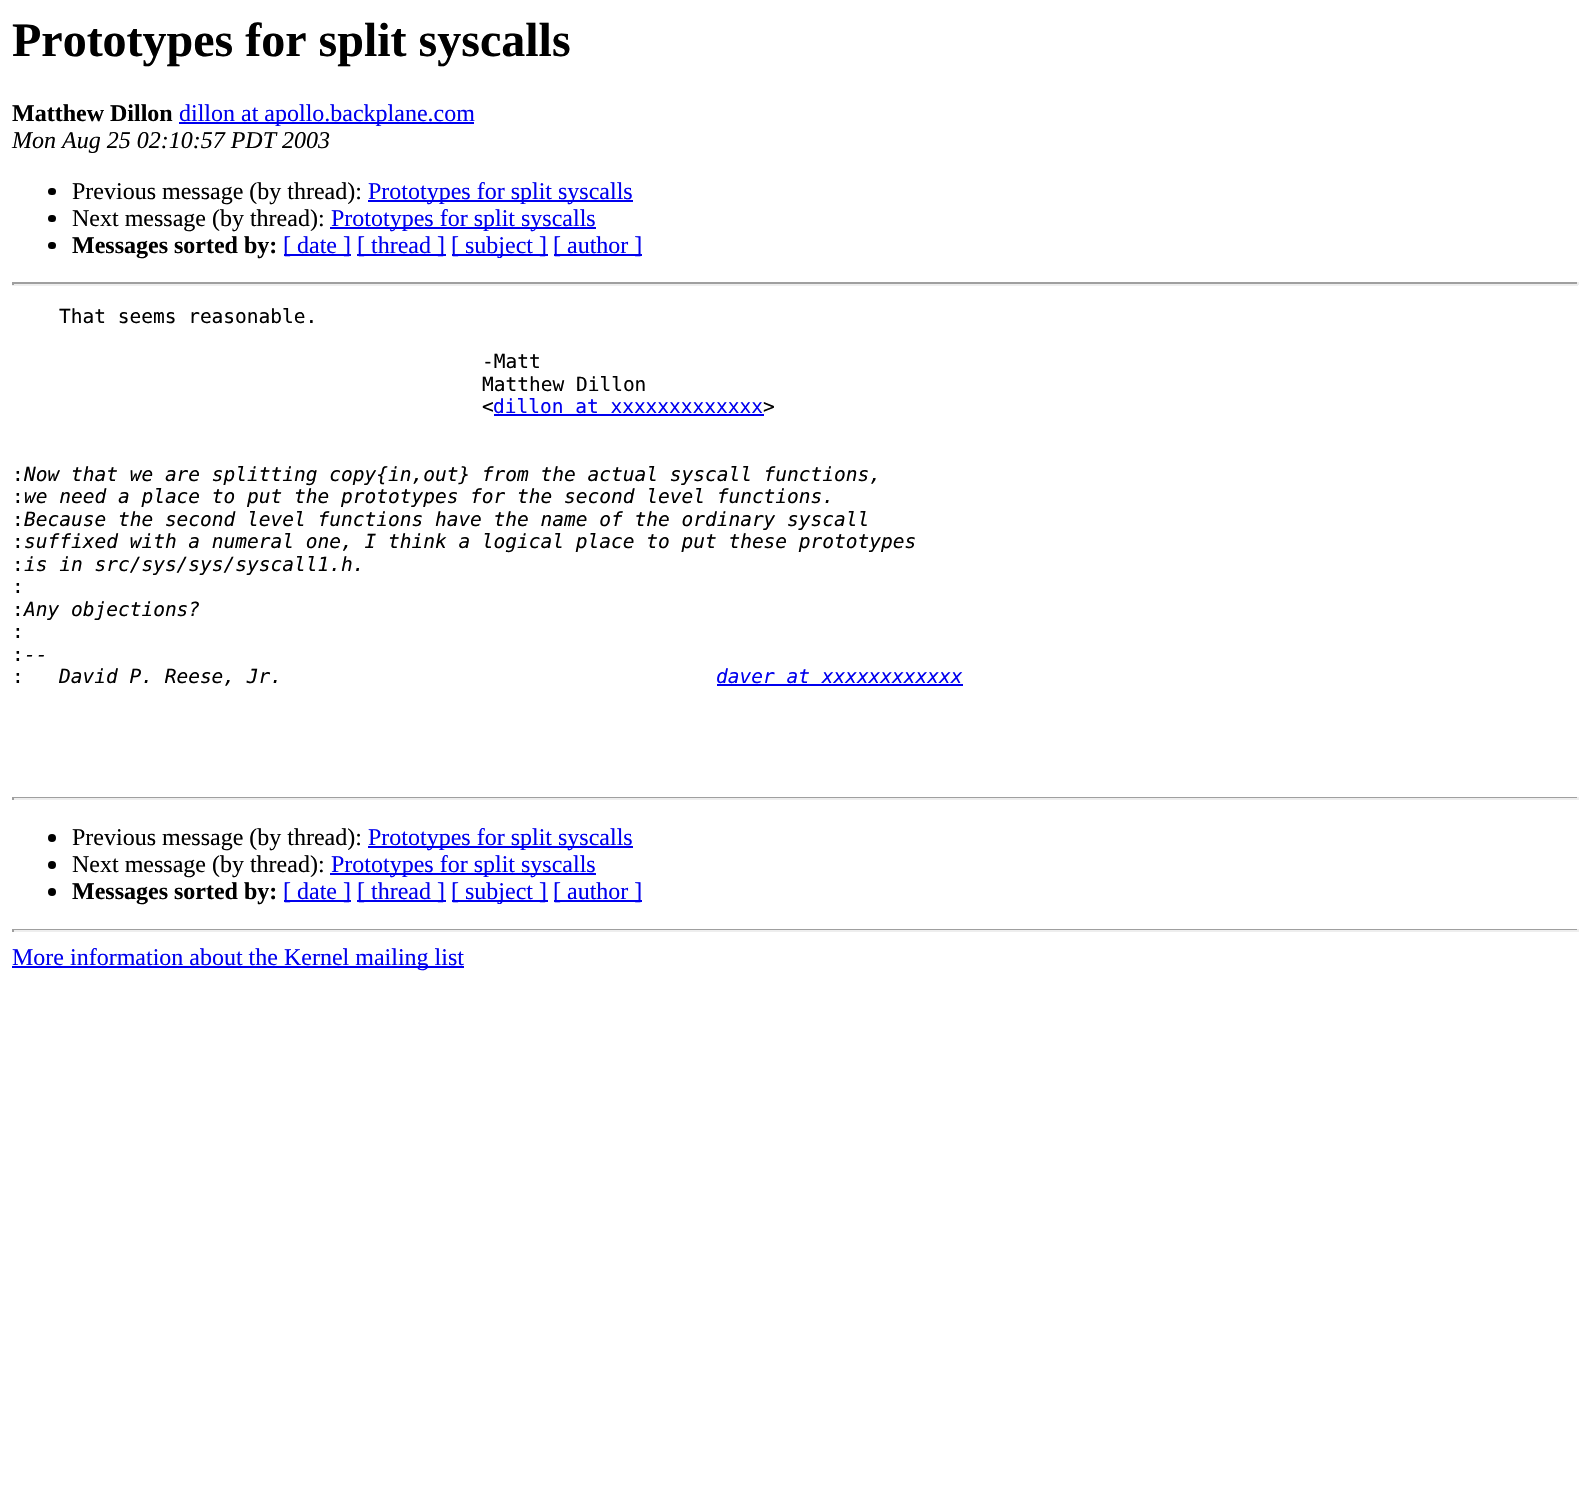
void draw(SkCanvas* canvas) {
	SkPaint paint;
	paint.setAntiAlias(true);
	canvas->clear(0xffffffff);
	SkFont f1(fontMgr->matchFamilyStyle("Liberation Serif", SkFontStyle::Bold()), 48);
	f1.setSubpixel(true);
	paint.setColor(0xff000000);
	canvas->drawString("Prototypes for split syscalls", 12, 56, f1, paint);
	SkFont f2(fontMgr->matchFamilyStyle("Liberation Serif", SkFontStyle::Bold()), 24);
	f2.setSubpixel(true);
	canvas->drawString("Matthew Dillon", 12, 121, f2, paint);
	paint.setColor(0xff0000ee);
	canvas->drawRect(SkRect::MakeXYWH(179, 122, 295, 2), paint);
	SkFont f3(fontMgr->matchFamilyStyle("Liberation Serif", SkFontStyle::Normal()), 24);
	f3.setSubpixel(true);
	canvas->drawString("dillon at apollo.backplane.com", 179, 121, f3, paint);
	SkFont f4(fontMgr->matchFamilyStyle("Liberation Serif", SkFontStyle::Italic()), 24);
	f4.setSubpixel(true);
	paint.setColor(0xff000000);
	canvas->drawString("Mon Aug 25 02:10:57 PDT 2003", 12, 148, f4, paint);
	canvas->drawRoundRect(SkRect::MakeXYWH(48, 188, 8, 7), 3.5, 3.5, paint);
	canvas->drawString("Previous message (by thread):", 72, 199, f3, paint);
	paint.setColor(0xff0000ee);
	canvas->drawRect(SkRect::MakeXYWH(368, 200, 265, 2), paint);
	canvas->drawString("Prototypes for split syscalls", 368, 199, f3, paint);
	paint.setColor(0xff000000);
	canvas->drawRoundRect(SkRect::MakeXYWH(48, 215, 8, 7), 3.5, 3.5, paint);
	canvas->drawString("Next message (by thread):", 72, 226, f3, paint);
	paint.setColor(0xff0000ee);
	canvas->drawRect(SkRect::MakeXYWH(330, 227, 266, 2), paint);
	canvas->drawString("Prototypes for split syscalls", 331, 226, f3, paint);
	paint.setColor(0xff000000);
	canvas->drawRoundRect(SkRect::MakeXYWH(48, 242, 8, 7), 3.5, 3.5, paint);
	canvas->drawString("Messages sorted by:", 72, 253, f2, paint);
	paint.setColor(0xff0000ee);
	canvas->drawRect(SkRect::MakeXYWH(284, 254, 67, 2), paint);
	canvas->drawString("[ date ]", 283, 253, f3, paint);
	canvas->drawRect(SkRect::MakeXYWH(357, 254, 89, 2), paint);
	canvas->drawString("[ thread ]", 357, 253, f3, paint);
	canvas->drawRect(SkRect::MakeXYWH(452, 254, 96, 2), paint);
	canvas->drawString("[ subject ]", 451, 253, f3, paint);
	canvas->drawRect(SkRect::MakeXYWH(554, 254, 88, 2), paint);
	canvas->drawString("[ author ]", 553, 253, f3, paint);
	paint.setColor(0xff9f9f9f);
	canvas->drawRect(SkRect::MakeXYWH(12, 282, 1566, 2), paint);
	paint.setColor(0xffeeeeee);
	canvas->drawRect(SkRect::MakeXYWH(1577, 282, 2, 3), paint);
	canvas->drawRect(SkRect::MakeXYWH(12, 284, 1566, 2), paint);
	paint.setColor(0xff9f9f9f);
	canvas->drawRect(SkRect::MakeXYWH(12, 282, 2, 3), paint);
	SkFont f5(fontMgr->matchFamilyStyle("DejaVu Sans Mono", SkFontStyle::Normal()), 19.5);
	f5.setSubpixel(true);
	paint.setColor(0xff000000);
	canvas->drawString("That seems reasonable.", 59, 323, f5, paint);
	canvas->drawString("-Matt", 482, 368, f5, paint);
	canvas->drawString("Matthew Dillon", 482, 391, f5, paint);
	canvas->drawString("<", 482, 413, f5, paint);
	paint.setColor(0xff0000ee);
	canvas->drawString("dillon at xxxxxxxxxxxxx", 493, 413, f5, paint);
	canvas->drawRect(SkRect::MakeXYWH(494, 414, 270, 2), paint);
	paint.setColor(0xff000000);
	canvas->drawString(">", 763, 413, f5, paint);
	canvas->drawString(":", 12, 481, f5, paint);
	SkFont f6(fontMgr->matchFamilyStyle("DejaVu Sans Mono", SkFontStyle::Italic()), 19.5);
	f6.setSubpixel(true);
	canvas->drawString("Now that we are splitting copy{in,out} from the actual syscall functions,", 24, 481, f6, paint);
	canvas->drawString(":", 12, 503, f5, paint);
	canvas->drawString("we need a place to put the prototypes for the second level functions.", 24, 503, f6, paint);
	canvas->drawString(":", 12, 526, f5, paint);
	canvas->drawString("Because the second level functions have the name of the ordinary syscall", 24, 526, f6, paint);
	canvas->drawString(":", 12, 548, f5, paint);
	canvas->drawString("suffixed with a numeral one, I think a logical place to put these prototypes", 24, 548, f6, paint);
	canvas->drawString(":", 12, 571, f5, paint);
	canvas->drawString("is in src/sys/sys/syscall1.h.", 24, 571, f6, paint);
	canvas->drawString(":", 12, 593, f5, paint);
	canvas->drawString(":", 12, 616, f5, paint);
	canvas->drawString("Any objections?", 24, 616, f6, paint);
	canvas->drawString(":", 12, 638, f5, paint);
	canvas->drawString(":", 12, 661, f5, paint);
	canvas->drawString("--", 24, 661, f6, paint);
	canvas->drawString(":", 12, 683, f5, paint);
	canvas->drawString("David P. Reese, Jr.", 59, 683, f6, paint);
	paint.setColor(0xff0000ee);
	canvas->drawString("daver at xxxxxxxxxxxx", 716, 683, f6, paint);
	canvas->drawRect(SkRect::MakeXYWH(717, 684, 246, 2), paint);
	paint.setColor(0xff9f9f9f);
	canvas->drawRect(SkRect::MakeXYWH(12, 797, 1566, 1), paint);
	paint.setColor(0xffeeeeee);
	canvas->drawRect(SkRect::MakeXYWH(1577, 797, 2, 3), paint);
	canvas->drawRect(SkRect::MakeXYWH(12, 798, 1566, 2), paint);
	paint.setColor(0xff9f9f9f);
	canvas->drawRect(SkRect::MakeXYWH(12, 797, 2, 3), paint);
	paint.setColor(0xff000000);
	canvas->drawCircle(52, 838, 4, paint);
	canvas->drawString("Previous message (by thread):", 72, 845, f3, paint);
	paint.setColor(0xff0000ee);
	canvas->drawRect(SkRect::MakeXYWH(368, 846, 265, 2), paint);
	canvas->drawString("Prototypes for split syscalls", 368, 845, f3, paint);
	paint.setColor(0xff000000);
	canvas->drawCircle(52, 865, 4, paint);
	canvas->drawString("Next message (by thread):", 72, 872, f3, paint);
	paint.setColor(0xff0000ee);
	canvas->drawRect(SkRect::MakeXYWH(330, 873, 266, 2), paint);
	canvas->drawString("Prototypes for split syscalls", 331, 872, f3, paint);
	paint.setColor(0xff000000);
	canvas->drawCircle(52, 892, 4, paint);
	canvas->drawString("Messages sorted by:", 72, 899, f2, paint);
	paint.setColor(0xff0000ee);
	canvas->drawRect(SkRect::MakeXYWH(284, 900, 67, 2), paint);
	canvas->drawString("[ date ]", 283, 899, f3, paint);
	canvas->drawRect(SkRect::MakeXYWH(357, 900, 89, 2), paint);
	canvas->drawString("[ thread ]", 357, 899, f3, paint);
	canvas->drawRect(SkRect::MakeXYWH(452, 900, 96, 2), paint);
	canvas->drawString("[ subject ]", 451, 899, f3, paint);
	canvas->drawRect(SkRect::MakeXYWH(554, 900, 88, 2), paint);
	canvas->drawString("[ author ]", 553, 899, f3, paint);
	paint.setColor(0xff9f9f9f);
	canvas->drawRect(SkRect::MakeXYWH(12, 929, 1566, 1), paint);
	paint.setColor(0xffeeeeee);
	canvas->drawRect(SkRect::MakeXYWH(1577, 929, 2, 3), paint);
	canvas->drawRect(SkRect::MakeXYWH(12, 930, 1566, 2), paint);
	paint.setColor(0xff9f9f9f);
	canvas->drawRect(SkRect::MakeXYWH(12, 929, 2, 3), paint);
	paint.setColor(0xff0000ee);
	canvas->drawRect(SkRect::MakeXYWH(12, 966, 452, 2), paint);
	canvas->drawString("More information about the Kernel mailing list", 12, 965, f3, paint);
}
